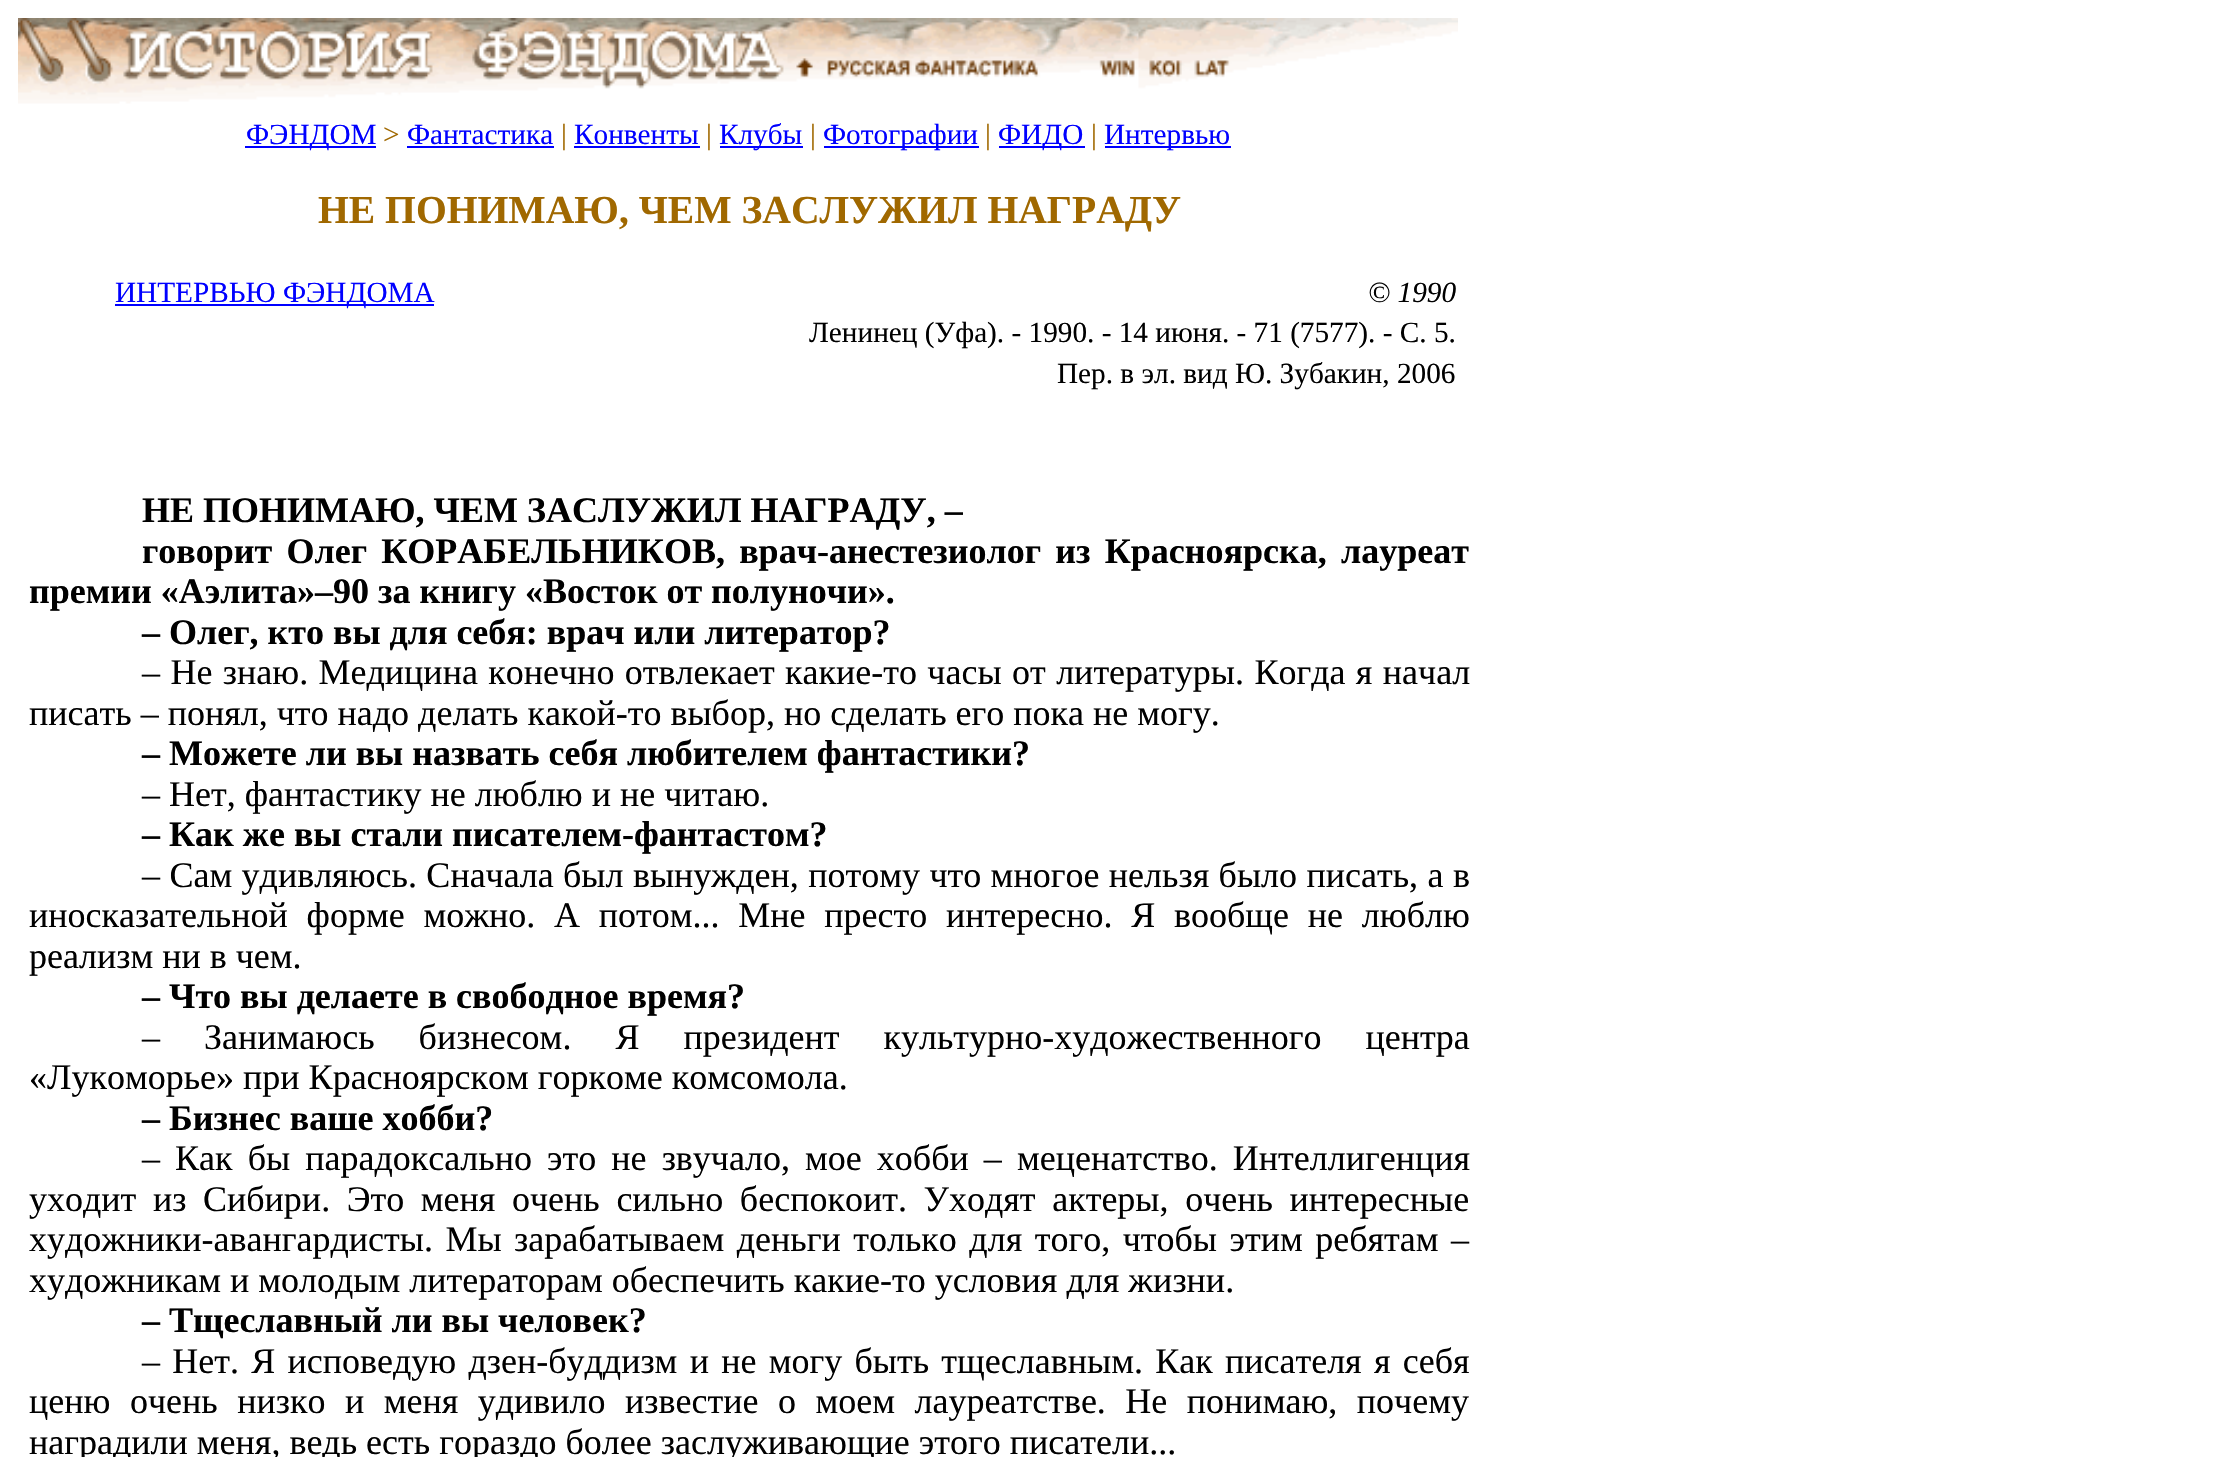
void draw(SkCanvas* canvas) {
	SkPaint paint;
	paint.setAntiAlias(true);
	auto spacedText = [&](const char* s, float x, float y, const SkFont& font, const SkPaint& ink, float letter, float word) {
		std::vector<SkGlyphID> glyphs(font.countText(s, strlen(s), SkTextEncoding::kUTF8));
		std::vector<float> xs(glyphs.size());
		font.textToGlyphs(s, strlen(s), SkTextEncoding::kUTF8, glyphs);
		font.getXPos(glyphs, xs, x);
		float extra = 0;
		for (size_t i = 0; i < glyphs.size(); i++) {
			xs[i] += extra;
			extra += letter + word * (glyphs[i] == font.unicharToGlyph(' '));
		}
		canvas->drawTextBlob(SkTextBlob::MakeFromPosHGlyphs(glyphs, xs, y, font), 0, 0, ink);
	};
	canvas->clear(0xffffffff);
	canvas->drawImageRect(SkImages::DeferredFromEncodedData(SkData::MakeFromFileName("img1.png")), SkRect::MakeXYWH(18, 18, 1440, 86), SkSamplingOptions());
	paint.setColor(0xff0000ff);
	canvas->drawRect(SkRect::MakeXYWH(245, 146, 131, 2), paint);
	SkFont f1(fontMgr->matchFamilyStyle("Liberation Serif", SkFontStyle::Normal()), 29.25);
	f1.setSubpixel(true);
	canvas->drawString("ФЭНДОМ", 246, 144, f1, paint);
	paint.setColor(0xffa06800);
	canvas->drawString(">", 383, 144, f1, paint);
	paint.setColor(0xff0000ff);
	canvas->drawString("Фантастика", 407, 144, f1, paint);
	canvas->drawRect(SkRect::MakeXYWH(407, 146, 147, 2), paint);
	paint.setColor(0xffa06800);
	canvas->drawString("|", 561, 144, f1, paint);
	paint.setColor(0xff0000ff);
	canvas->drawString("Конвенты", 574, 144, f1, paint);
	canvas->drawRect(SkRect::MakeXYWH(574, 146, 126, 2), paint);
	paint.setColor(0xffa06800);
	canvas->drawString("|", 706, 144, f1, paint);
	paint.setColor(0xff0000ff);
	canvas->drawRect(SkRect::MakeXYWH(720, 146, 83, 2), paint);
	canvas->drawString("Клубы", 719, 144, f1, paint);
	paint.setColor(0xffa06800);
	canvas->drawString("|", 810, 144, f1, paint);
	paint.setColor(0xff0000ff);
	canvas->drawRect(SkRect::MakeXYWH(824, 146, 155, 2), paint);
	canvas->drawString("Фотографии", 823, 144, f1, paint);
	paint.setColor(0xffa06800);
	canvas->drawString("|", 985, 144, f1, paint);
	paint.setColor(0xff0000ff);
	canvas->drawRect(SkRect::MakeXYWH(999, 146, 86, 2), paint);
	canvas->drawString("ФИДО", 998, 144, f1, paint);
	paint.setColor(0xffa06800);
	canvas->drawString("|", 1091, 144, f1, paint);
	paint.setColor(0xff0000ff);
	canvas->drawRect(SkRect::MakeXYWH(1105, 146, 126, 2), paint);
	canvas->drawString("Интервью", 1104, 144, f1, paint);
	SkFont f2(fontMgr->matchFamilyStyle("Liberation Serif", SkFontStyle::Bold()), 39.6);
	f2.setSubpixel(true);
	paint.setColor(0xffa06800);
	canvas->drawString("НЕ ПОНИМАЮ, ЧЕМ ЗАСЛУЖИЛ НАГРАДУ", 318, 223, f2, paint);
	paint.setColor(0xff0000ff);
	canvas->drawRect(SkRect::MakeXYWH(115, 304, 319, 2), paint);
	canvas->drawString("ИНТЕРВЬЮ ФЭНДОМА", 115, 302, f1, paint);
	SkFont f3(fontMgr->matchFamilyStyle("Liberation Serif", SkFontStyle::Italic()), 29.25);
	f3.setSubpixel(true);
	paint.setColor(0xff000000);
	canvas->drawString("© 1990", 1368, 302, f3, paint);
	canvas->drawString("Ленинец (Уфа). - 1990. - 14 июня. - 71 (7577). - С. 5.", 809, 342, f1, paint);
	canvas->drawString("Пер. в эл. вид Ю. Зубакин, 2006", 1057, 383, f1, paint);
	SkFont f4(fontMgr->matchFamilyStyle("Liberation Serif", SkFontStyle::Bold()), 36);
	f4.setSubpixel(true);
	canvas->drawString("НЕ ПОНИМАЮ, ЧЕМ ЗАСЛУЖИЛ НАГРАДУ, –", 142, 522, f4, paint);
	spacedText("говорит Олег КОРАБЕЛЬНИКОВ, врач-анестезиолог из Красноярска, лауреат", 142, 563, f4, paint, 0, 5.25);
	canvas->drawString("премии «Аэлита»–90 за книгу «Восток от полуночи».", 29, 603, f4, paint);
	canvas->drawString("– Олег, кто вы для себя: врач или литератор?", 142, 644, f4, paint);
	SkFont f5(fontMgr->matchFamilyStyle("Liberation Serif", SkFontStyle::Normal()), 36);
	f5.setSubpixel(true);
	spacedText("– Не знаю. Медицина конечно отвлекает какие-то часы от литературы. Когда я начал", 142, 684, f5, paint, 0, 1.4);
	canvas->drawString("писать – понял, что надо делать какой-то выбор, но сделать его пока не могу.", 29, 725, f5, paint);
	canvas->drawString("– Можете ли вы назвать себя любителем фантастики?", 142, 765, f4, paint);
	canvas->drawString("– Нет, фантастику не люблю и не читаю.", 142, 806, f5, paint);
	canvas->drawString("– Как же вы стали писателем-фантастом?", 142, 846, f4, paint);
	spacedText("– Сам удивляюсь. Сначала был вынужден, потому что многое нельзя было писать, а в", 142, 887, f5, paint, 0, 0.4);
	spacedText("иносказательной форме можно. А потом... Мне престо интересно. Я вообще не люблю", 29, 927, f5, paint, 0, 9.75);
	canvas->drawString("реализм ни в чем.", 29, 968, f5, paint);
	canvas->drawString("– Что вы делаете в свободное время?", 142, 1008, f4, paint);
	spacedText("– Занимаюсь бизнесом. Я президент культурно-художественного центра", 142, 1049, f5, paint, 0, 35);
	canvas->drawString("«Лукоморье» при Красноярском горкоме комсомола.", 29, 1089, f5, paint);
	canvas->drawString("– Бизнес ваше хобби?", 142, 1130, f4, paint);
	spacedText("– Как бы парадоксально это не звучало, мое хобби – меценатство. Интеллигенция", 142, 1170, f5, paint, 0, 6.1);
	spacedText("уходит из Сибири. Это меня очень сильно беспокоит. Уходят актеры, очень интересные", 29, 1211, f5, paint, 0, 7.6);
	spacedText("художники-авангардисты. Мы зарабатываем деньги только для того, чтобы этим ребятам –", 29, 1251, f5, paint, 0, 3.5);
	canvas->drawString("художникам и молодым литераторам обеспечить какие-то условия для жизни.", 29, 1292, f5, paint);
	canvas->drawString("– Тщеславный ли вы человек?", 142, 1332, f4, paint);
	spacedText("– Нет. Я исповедую дзен-буддизм и не могу быть тщеславным. Как писателя я себя", 142, 1373, f5, paint, 0, 3.25);
	spacedText("ценю очень низко и меня удивило известие о моем лауреатстве. Не понимаю, почему", 29, 1413, f5, paint, 0, 10.5);
	canvas->drawString("наградили меня, ведь есть гораздо более заслуживающие этого писатели...", 29, 1454, f5, paint);
}
